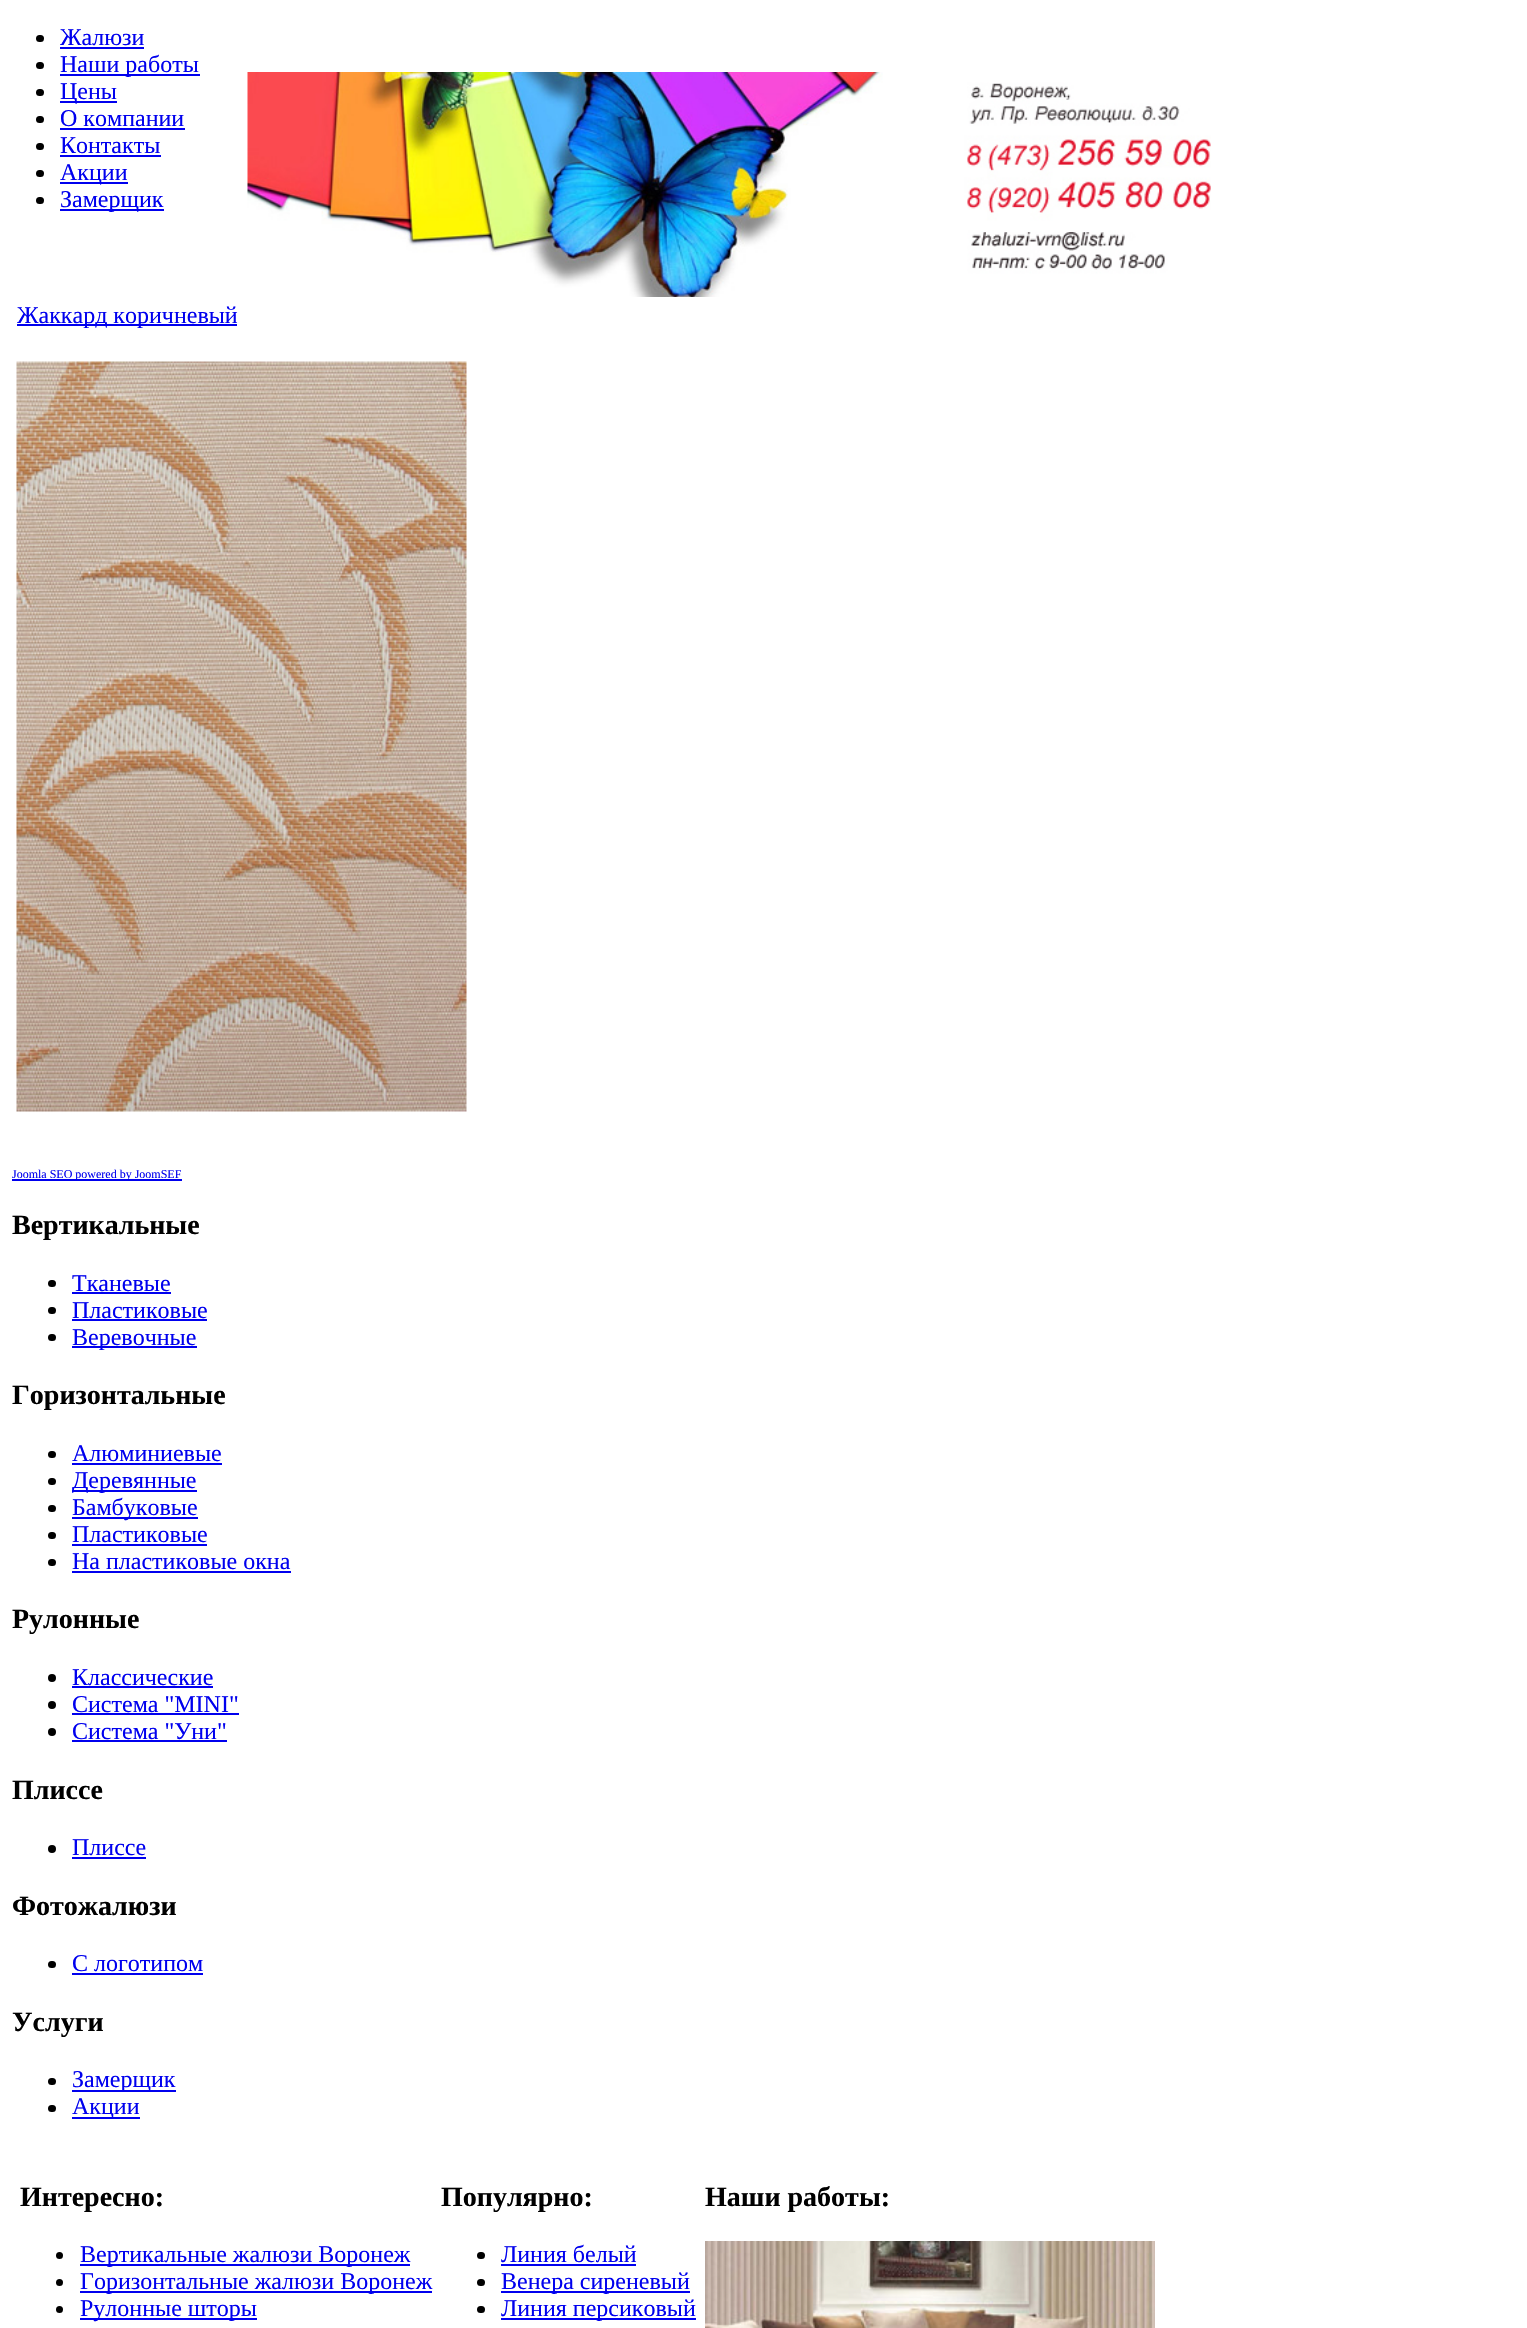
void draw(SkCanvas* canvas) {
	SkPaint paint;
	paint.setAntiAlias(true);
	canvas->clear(0xffffffff);
	paint.setColor(0xff000000);
	canvas->drawRoundRect(SkRect::MakeXYWH(36, 35, 8, 7), 3.5, 3.5, paint);
	SkFont f1(fontMgr->matchFamilyStyle("Liberation Serif", SkFontStyle::Normal()), 24);
	f1.setSubpixel(true);
	paint.setColor(0xff0000ee);
	canvas->drawString("Жалюзи", 60, 45, f1, paint);
	canvas->drawRect(SkRect::MakeXYWH(60, 47, 84, 2), paint);
	paint.setColor(0xff000000);
	canvas->drawRoundRect(SkRect::MakeXYWH(36, 62, 8, 7), 3.5, 3.5, paint);
	paint.setColor(0xff0000ee);
	canvas->drawRect(SkRect::MakeXYWH(60, 74, 140, 2), paint);
	canvas->drawString("Наши работы", 60, 72, f1, paint);
	paint.setColor(0xff000000);
	canvas->drawRoundRect(SkRect::MakeXYWH(36, 89, 8, 7), 3.5, 3.5, paint);
	paint.setColor(0xff0000ee);
	canvas->drawRect(SkRect::MakeXYWH(60, 101, 57, 2), paint);
	canvas->drawString("Цены", 60, 99, f1, paint);
	paint.setColor(0xff000000);
	canvas->drawRoundRect(SkRect::MakeXYWH(36, 116, 8, 7), 3.5, 3.5, paint);
	paint.setColor(0xff0000ee);
	canvas->drawString("О компании", 60, 126, f1, paint);
	canvas->drawRect(SkRect::MakeXYWH(60, 128, 125, 2), paint);
	paint.setColor(0xff000000);
	canvas->drawRoundRect(SkRect::MakeXYWH(36, 143, 8, 7), 3.5, 3.5, paint);
	paint.setColor(0xff0000ee);
	canvas->drawString("Контакты", 60, 153, f1, paint);
	canvas->drawRect(SkRect::MakeXYWH(60, 155, 101, 2), paint);
	paint.setColor(0xff000000);
	canvas->drawRoundRect(SkRect::MakeXYWH(36, 170, 8, 7), 3.5, 3.5, paint);
	paint.setColor(0xff0000ee);
	canvas->drawRect(SkRect::MakeXYWH(60, 182, 68, 2), paint);
	canvas->drawString("Акции", 60, 180, f1, paint);
	paint.setColor(0xff000000);
	canvas->drawRoundRect(SkRect::MakeXYWH(36, 197, 8, 7), 3.5, 3.5, paint);
	paint.setColor(0xff0000ee);
	canvas->drawRect(SkRect::MakeXYWH(60, 209, 104, 2), paint);
	canvas->drawString("Замерщик", 60, 207, f1, paint);
	canvas->drawImageRect(SkImages::DeferredFromEncodedData(SkData::MakeFromFileName("img1.png")), SkRect::MakeXYWH(247, 72, 964, 225), SkSamplingOptions());
	canvas->drawRect(SkRect::MakeXYWH(17, 324, 220, 2), paint);
	canvas->drawString("Жаккард коричневый", 17, 323, f1, paint);
	canvas->drawImageRect(SkImages::DeferredFromEncodedData(SkData::MakeFromFileName("img2.png")), SkRect::MakeXYWH(16, 361, 451, 751), SkSamplingOptions());
	canvas->drawRect(SkRect::MakeXYWH(12, 1179, 170, 2), paint);
	SkFont f2(fontMgr->matchFamilyStyle("Liberation Serif", SkFontStyle::Normal()), 12);
	f2.setSubpixel(true);
	canvas->drawString("Joomla SEO powered by JoomSEF", 12, 1178, f2, paint);
	SkFont f3(fontMgr->matchFamilyStyle("Liberation Serif", SkFontStyle::Bold()), 28);
	f3.setSubpixel(true);
	paint.setColor(0xff000000);
	canvas->drawString("Вертикальные", 12, 1234, f3, paint);
	canvas->drawRoundRect(SkRect::MakeXYWH(48, 1280, 8, 7), 3.5, 3.5, paint);
	paint.setColor(0xff0000ee);
	canvas->drawString("Тканевые", 72, 1291, f1, paint);
	canvas->drawRect(SkRect::MakeXYWH(72, 1292, 99, 2), paint);
	paint.setColor(0xff000000);
	canvas->drawRoundRect(SkRect::MakeXYWH(48, 1307, 8, 7), 3.5, 3.5, paint);
	paint.setColor(0xff0000ee);
	canvas->drawString("Пластиковые", 72, 1318, f1, paint);
	canvas->drawRect(SkRect::MakeXYWH(72, 1319, 135, 2), paint);
	paint.setColor(0xff000000);
	canvas->drawRoundRect(SkRect::MakeXYWH(48, 1334, 8, 7), 3.5, 3.5, paint);
	paint.setColor(0xff0000ee);
	canvas->drawRect(SkRect::MakeXYWH(72, 1346, 125, 2), paint);
	canvas->drawString("Веревочные", 72, 1345, f1, paint);
	paint.setColor(0xff000000);
	canvas->drawString("Горизонтальные", 12, 1404, f3, paint);
	canvas->drawRoundRect(SkRect::MakeXYWH(48, 1451, 8, 7), 3.5, 3.5, paint);
	paint.setColor(0xff0000ee);
	canvas->drawString("Алюминиевые", 72, 1461, f1, paint);
	canvas->drawRect(SkRect::MakeXYWH(72, 1463, 150, 2), paint);
	paint.setColor(0xff000000);
	canvas->drawRoundRect(SkRect::MakeXYWH(48, 1478, 8, 7), 3.5, 3.5, paint);
	paint.setColor(0xff0000ee);
	canvas->drawRect(SkRect::MakeXYWH(72, 1490, 125, 2), paint);
	canvas->drawString("Деревянные", 72, 1488, f1, paint);
	paint.setColor(0xff000000);
	canvas->drawRoundRect(SkRect::MakeXYWH(48, 1505, 8, 7), 3.5, 3.5, paint);
	paint.setColor(0xff0000ee);
	canvas->drawRect(SkRect::MakeXYWH(72, 1517, 126, 2), paint);
	canvas->drawString("Бамбуковые", 72, 1515, f1, paint);
	paint.setColor(0xff000000);
	canvas->drawRoundRect(SkRect::MakeXYWH(48, 1532, 8, 7), 3.5, 3.5, paint);
	paint.setColor(0xff0000ee);
	canvas->drawString("Пластиковые", 72, 1542, f1, paint);
	canvas->drawRect(SkRect::MakeXYWH(72, 1544, 135, 2), paint);
	paint.setColor(0xff000000);
	canvas->drawRoundRect(SkRect::MakeXYWH(48, 1559, 8, 7), 3.5, 3.5, paint);
	paint.setColor(0xff0000ee);
	canvas->drawString("На пластиковые окна", 72, 1569, f1, paint);
	canvas->drawRect(SkRect::MakeXYWH(72, 1571, 219, 2), paint);
	paint.setColor(0xff000000);
	canvas->drawString("Рулонные", 12, 1628, f3, paint);
	canvas->drawCircle(52, 1678, 4, paint);
	paint.setColor(0xff0000ee);
	canvas->drawString("Классические", 72, 1685, f1, paint);
	canvas->drawRect(SkRect::MakeXYWH(72, 1686, 141, 2), paint);
	paint.setColor(0xff000000);
	canvas->drawCircle(52, 1705, 4, paint);
	paint.setColor(0xff0000ee);
	canvas->drawString("Система \"MINI\"", 72, 1712, f1, paint);
	canvas->drawRect(SkRect::MakeXYWH(72, 1713, 167, 2), paint);
	paint.setColor(0xff000000);
	canvas->drawCircle(52, 1732, 4, paint);
	paint.setColor(0xff0000ee);
	canvas->drawString("Система \"Уни\"", 72, 1739, f1, paint);
	canvas->drawRect(SkRect::MakeXYWH(72, 1740, 155, 2), paint);
	paint.setColor(0xff000000);
	canvas->drawString("Плиссе", 12, 1799, f3, paint);
	canvas->drawCircle(52, 1849, 4, paint);
	paint.setColor(0xff0000ee);
	canvas->drawString("Плиссе", 72, 1855, f1, paint);
	canvas->drawRect(SkRect::MakeXYWH(72, 1857, 74, 2), paint);
	paint.setColor(0xff000000);
	canvas->drawString("Фотожалюзи", 12, 1915, f3, paint);
	canvas->drawRoundRect(SkRect::MakeXYWH(48, 1961, 8, 7), 3.5, 3.5, paint);
	paint.setColor(0xff0000ee);
	canvas->drawString("С логотипом", 72, 1971, f1, paint);
	canvas->drawRect(SkRect::MakeXYWH(72, 1973, 131, 2), paint);
	paint.setColor(0xff000000);
	canvas->drawString("Услуги", 12, 2031, f3, paint);
	canvas->drawRoundRect(SkRect::MakeXYWH(48, 2078, 8, 7), 3.5, 3.5, paint);
	paint.setColor(0xff0000ee);
	canvas->drawRect(SkRect::MakeXYWH(72, 2090, 104, 2), paint);
	canvas->drawString("Замерщик", 72, 2087, f1, paint);
	paint.setColor(0xff000000);
	canvas->drawRoundRect(SkRect::MakeXYWH(48, 2105, 8, 7), 3.5, 3.5, paint);
	paint.setColor(0xff0000ee);
	canvas->drawRect(SkRect::MakeXYWH(72, 2117, 68, 2), paint);
	canvas->drawString("Акции", 72, 2114, f1, paint);
	paint.setColor(0xff000000);
	canvas->drawString("Интересно:", 20, 2206, f3, paint);
	canvas->drawCircle(59.5, 2255.5, 3.5, paint);
	paint.setColor(0xff0000ee);
	canvas->drawRect(SkRect::MakeXYWH(80, 2264, 330, 2), paint);
	canvas->drawString("Вертикальные жалюзи Воронеж", 80, 2262, f1, paint);
	paint.setColor(0xff000000);
	canvas->drawCircle(59.5, 2282.5, 3.5, paint);
	paint.setColor(0xff0000ee);
	canvas->drawRect(SkRect::MakeXYWH(80, 2291, 352, 2), paint);
	canvas->drawString("Горизонтальные жалюзи Воронеж", 80, 2289, f1, paint);
	paint.setColor(0xff000000);
	canvas->drawCircle(59.5, 2309.5, 3.5, paint);
	paint.setColor(0xff0000ee);
	canvas->drawRect(SkRect::MakeXYWH(80, 2318, 177, 2), paint);
	canvas->drawString("Рулонные шторы", 80, 2316, f1, paint);
	paint.setColor(0xff000000);
	canvas->drawString("Популярно:", 441, 2206, f3, paint);
	canvas->drawRoundRect(SkRect::MakeXYWH(477, 2252, 8, 7), 3.5, 3.5, paint);
	paint.setColor(0xff0000ee);
	canvas->drawString("Линия белый", 501, 2262, f1, paint);
	canvas->drawRect(SkRect::MakeXYWH(501, 2264, 135, 2), paint);
	paint.setColor(0xff000000);
	canvas->drawRoundRect(SkRect::MakeXYWH(477, 2279, 8, 7), 3.5, 3.5, paint);
	paint.setColor(0xff0000ee);
	canvas->drawRect(SkRect::MakeXYWH(501, 2291, 189, 2), paint);
	canvas->drawString("Венера сиреневый", 501, 2289, f1, paint);
	paint.setColor(0xff000000);
	canvas->drawRoundRect(SkRect::MakeXYWH(477, 2306, 8, 7), 3.5, 3.5, paint);
	paint.setColor(0xff0000ee);
	canvas->drawRect(SkRect::MakeXYWH(501, 2318, 195, 2), paint);
	canvas->drawString("Линия персиковый", 501, 2316, f1, paint);
	paint.setColor(0xff000000);
	canvas->drawString("Наши работы:", 705, 2206, f3, paint);
	canvas->drawImageRect(SkImages::DeferredFromEncodedData(SkData::MakeFromFileName("img3.png")), SkRect::MakeXYWH(705, 2241, 450, 87), SkSamplingOptions());
}
